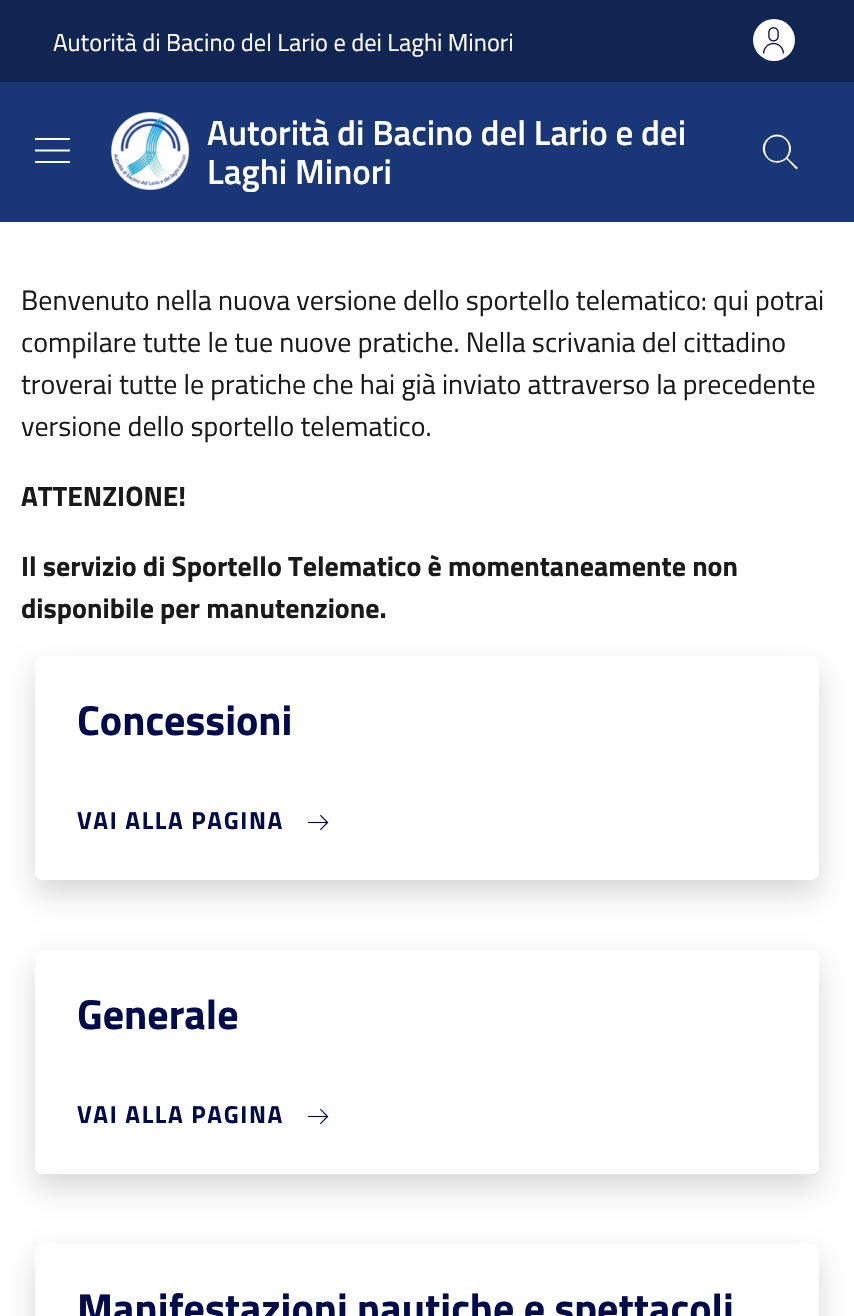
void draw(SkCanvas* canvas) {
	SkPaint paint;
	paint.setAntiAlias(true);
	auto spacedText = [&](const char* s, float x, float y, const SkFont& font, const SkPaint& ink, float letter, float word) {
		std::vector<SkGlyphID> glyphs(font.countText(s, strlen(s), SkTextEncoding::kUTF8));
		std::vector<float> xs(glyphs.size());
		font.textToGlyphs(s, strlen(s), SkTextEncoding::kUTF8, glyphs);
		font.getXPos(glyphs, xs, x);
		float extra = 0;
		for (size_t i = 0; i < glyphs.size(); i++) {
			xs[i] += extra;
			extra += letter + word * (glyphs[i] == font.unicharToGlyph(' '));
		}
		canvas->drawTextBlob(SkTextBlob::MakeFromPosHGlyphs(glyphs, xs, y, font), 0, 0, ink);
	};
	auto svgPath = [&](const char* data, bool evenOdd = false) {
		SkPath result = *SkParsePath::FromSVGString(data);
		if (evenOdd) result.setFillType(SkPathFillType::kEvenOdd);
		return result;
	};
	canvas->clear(0xffffffff);
	paint.setColor(0xff112552);
	canvas->drawRect(SkRect::MakeXYWH(0, 0, 854, 82), paint);
	SkFont f1(fontMgr->matchFamilyStyle("Titillium Web", SkFontStyle::Normal()), 24.5);
	f1.setSubpixel(true);
	paint.setColor(0xffffffff);
	canvas->drawString("Autorità di Bacino del Lario e dei Laghi Minori", 53, 51, f1, paint);
	canvas->drawCircle(774, 40, 21, paint);
	canvas->drawImageRect(SkImages::DeferredFromEncodedData(SkData::MakeFromFileName("img1.png")), SkRect::MakeXYWH(763, 27, 21, 27), SkSamplingOptions());
	paint.setColor(0xff193676);
	canvas->drawRect(SkRect::MakeXYWH(0, 82, 854, 140), paint);
	paint.setColor(0xffffffff);
	canvas->drawPath(svgPath("M70 138V140H35V138ZM35 151.5H70V149.5H35ZM35 163H70V161H35Z"), paint);
	canvas->drawImageRect(SkImages::DeferredFromEncodedData(SkData::MakeFromFileName("img2.png")), SkRect::MakeXYWH(111, 112, 79, 79), SkSamplingOptions());
	SkFont f2(fontMgr->matchFamilyStyle("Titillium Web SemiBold", SkFontStyle(600, SkFontStyle::kNormal_Width, SkFontStyle::kUpright_Slant)), 35);
	f2.setSubpixel(true);
	canvas->drawString("Autorità di Bacino del Lario e dei", 207, 145, f2, paint);
	canvas->drawString("Laghi Minori", 207, 184, f2, paint);
	canvas->drawPath(svgPath("M798 168L787.5 158C799 144.5 780 126 767 139C754.5 151.5 773 171 786.5 159L796.5 169.5ZM777 161C761 161 761 136.5 777 136.5C793 136.5 793 161 777 161Z"), paint);
	SkFont f3(fontMgr->matchFamilyStyle("Titillium Web", SkFontStyle::Normal()), 28);
	f3.setSubpixel(true);
	paint.setColor(0xff1a1a1a);
	canvas->drawString("Benvenuto nella nuova versione dello sportello telematico: qui potrai", 21, 310, f3, paint);
	canvas->drawString("compilare tutte le tue nuove pratiche. Nella scrivania del cittadino", 21, 352, f3, paint);
	canvas->drawString("troverai tutte le pratiche che hai già inviato attraverso la precedente", 21, 394, f3, paint);
	canvas->drawString("versione dello sportello telematico.", 21, 436, f3, paint);
	SkFont f4(fontMgr->matchFamilyStyle("Titillium Web", SkFontStyle::Bold()), 28);
	f4.setSubpixel(true);
	canvas->drawString("ATTENZIONE!", 21, 506, f4, paint);
	canvas->drawString("Il servizio di Sportello Telematico è momentaneamente non", 21, 576, f4, paint);
	canvas->drawString("disponibile per manutenzione.", 21, 618, f4, paint);
	paint.setColor(0x26000000);
	paint.setMaskFilter(SkMaskFilter::MakeBlur(kNormal_SkBlurStyle, 14));
	canvas->drawRoundRect(SkRect::MakeXYWH(35, 670, 784, 224), 7, 7, paint);
	paint.setMaskFilter(nullptr);
	paint.setColor(0xffffffff);
	canvas->drawRoundRect(SkRect::MakeXYWH(35, 656, 784, 224), 7, 7, paint);
	SkFont f5(fontMgr->matchFamilyStyle("Titillium Web", SkFontStyle::Bold()), 42);
	f5.setSubpixel(true);
	paint.setColor(0xff000b4d);
	canvas->drawString("Concessioni", 77, 735, f5, paint);
	SkFont f6(fontMgr->matchFamilyStyle("Titillium Web", SkFontStyle::Bold()), 24.5);
	f6.setSubpixel(true);
	spacedText("VAI ALLA PAGINA", 77, 829, f6, paint, 1.6, 0);
	canvas->drawImageRect(SkImages::DeferredFromEncodedData(SkData::MakeFromFileName("img3.png")), SkRect::MakeXYWH(308, 814, 21, 17), SkSamplingOptions());
	paint.setColor(0x26000000);
	paint.setMaskFilter(SkMaskFilter::MakeBlur(kNormal_SkBlurStyle, 14));
	canvas->drawRoundRect(SkRect::MakeXYWH(35, 964, 784, 224), 7, 7, paint);
	paint.setMaskFilter(nullptr);
	paint.setColor(0xffffffff);
	canvas->drawRoundRect(SkRect::MakeXYWH(35, 950, 784, 224), 7, 7, paint);
	paint.setColor(0xff000b4d);
	canvas->drawString("Generale", 77, 1029, f5, paint);
	spacedText("VAI ALLA PAGINA", 77, 1123, f6, paint, 1.6, 0);
	canvas->drawImageRect(SkImages::DeferredFromEncodedData(SkData::MakeFromFileName("img3.png")), SkRect::MakeXYWH(308, 1108, 21, 17), SkSamplingOptions());
	paint.setColor(0x26000000);
	paint.setMaskFilter(SkMaskFilter::MakeBlur(kNormal_SkBlurStyle, 14));
	canvas->drawRoundRect(SkRect::MakeXYWH(35, 1258, 784, 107), 7, 7, paint);
	paint.setMaskFilter(nullptr);
	paint.setColor(0xffffffff);
	canvas->drawRoundRect(SkRect::MakeXYWH(35, 1244, 784, 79), 7, 7, paint);
	paint.setColor(0xff000b4d);
	canvas->drawString("Manifestazioni nautiche e spettacoli", 77, 1323, f5, paint);
}
